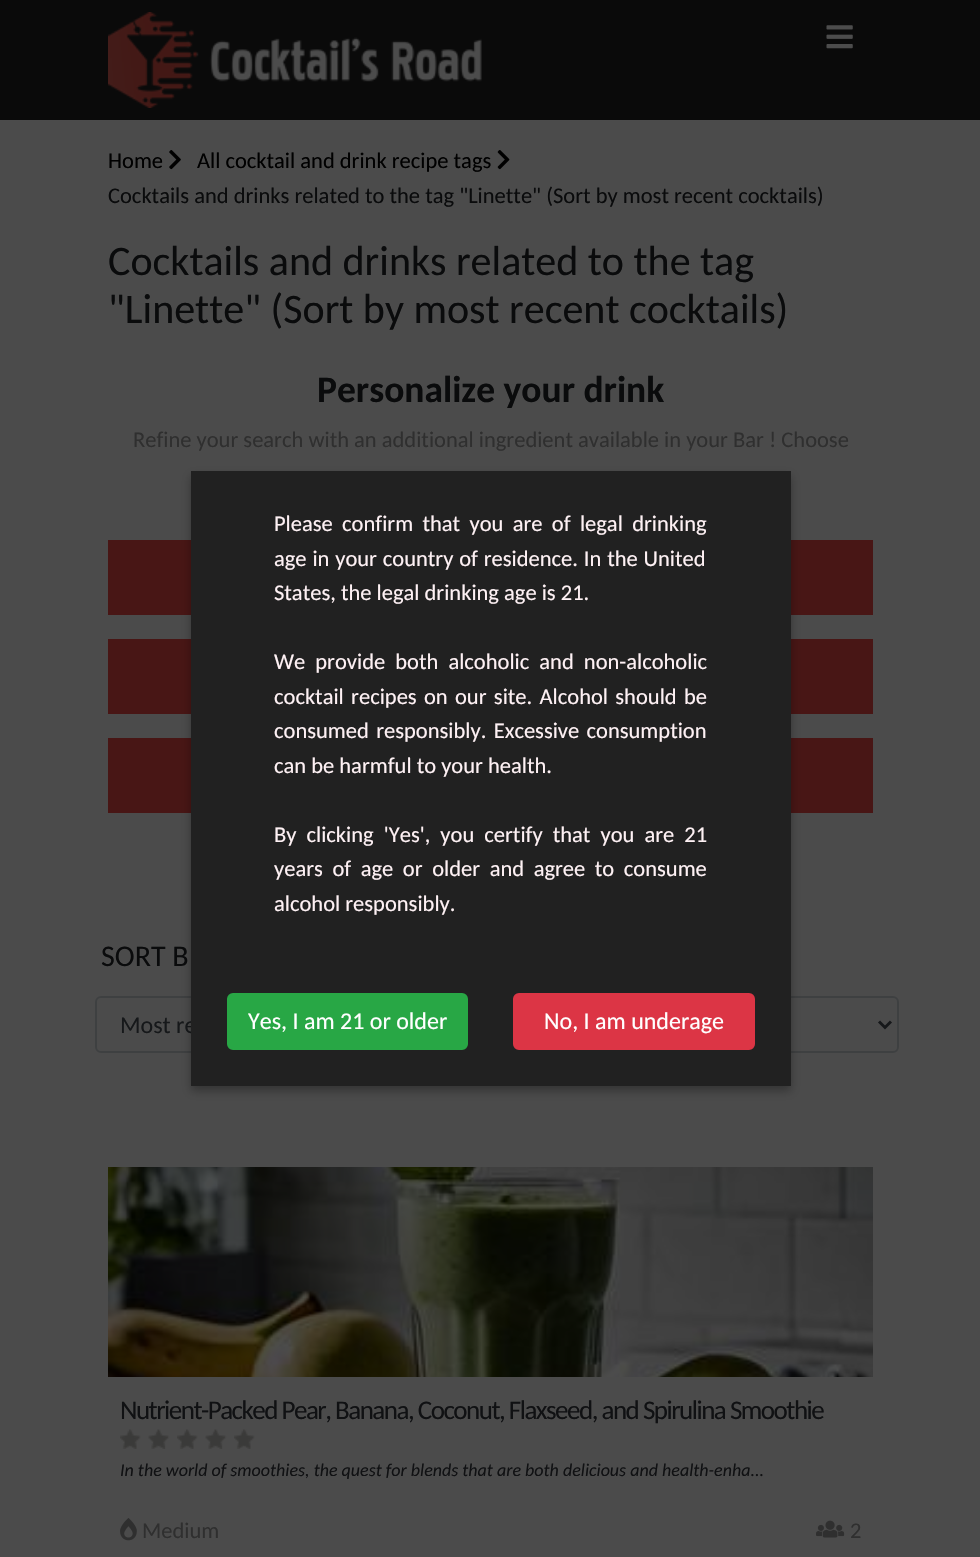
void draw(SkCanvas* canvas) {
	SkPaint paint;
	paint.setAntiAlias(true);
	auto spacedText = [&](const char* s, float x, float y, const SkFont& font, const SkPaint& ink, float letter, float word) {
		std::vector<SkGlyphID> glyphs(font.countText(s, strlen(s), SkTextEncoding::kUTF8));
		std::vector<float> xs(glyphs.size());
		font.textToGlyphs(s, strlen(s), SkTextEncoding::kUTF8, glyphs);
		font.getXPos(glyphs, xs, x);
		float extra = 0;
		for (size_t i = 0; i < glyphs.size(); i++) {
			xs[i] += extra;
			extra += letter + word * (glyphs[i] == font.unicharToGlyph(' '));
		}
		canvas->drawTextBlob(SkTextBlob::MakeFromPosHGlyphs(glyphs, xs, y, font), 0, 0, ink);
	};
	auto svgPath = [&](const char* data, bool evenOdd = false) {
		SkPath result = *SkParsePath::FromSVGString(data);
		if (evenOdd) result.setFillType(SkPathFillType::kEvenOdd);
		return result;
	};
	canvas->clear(0xff4b4b4b);
	paint.setColor(0xff0a0a0a);
	canvas->drawRect(SkRect::MakeXYWH(0, 0, 980, 120), paint);
	canvas->drawImageRect(SkImages::DeferredFromEncodedData(SkData::MakeFromFileName("img1.png")), SkRect::MakeXYWH(108, 12, 374, 96), SkSamplingOptions());
	canvas->drawImageRect(SkImages::DeferredFromEncodedData(SkData::MakeFromFileName("img2.png")), SkRect::MakeXYWH(826, 25, 27, 24), SkSamplingOptions());
	SkFont f1(fontMgr->matchFamilyStyle("Carlito", SkFontStyle::Normal()), 22.5);
	f1.setSubpixel(true);
	paint.setColor(0xff000000);
	canvas->drawString("Home", 108, 168, f1, paint);
	canvas->drawImageRect(SkImages::DeferredFromEncodedData(SkData::MakeFromFileName("img3.png")), SkRect::MakeXYWH(169, 150, 12, 20), SkSamplingOptions());
	canvas->drawString("All cocktail and drink recipe tags", 197, 168, f1, paint);
	canvas->drawImageRect(SkImages::DeferredFromEncodedData(SkData::MakeFromFileName("img4.png")), SkRect::MakeXYWH(497, 150, 13, 20), SkSamplingOptions());
	paint.setColor(0xff0a0b0c);
	canvas->drawString("Cocktails and drinks related to the tag \"Linette\" (Sort by most recent cocktails)", 108, 203, f1, paint);
	SkFont f2(fontMgr->matchFamilyStyle("Carlito", SkFontStyle::Normal()), 42);
	f2.setSubpixel(true);
	canvas->drawString("Cocktails and drinks related to the tag", 108, 275, f2, paint);
	canvas->drawString("\"Linette\" (Sort by most recent cocktails)", 108, 323, f2, paint);
	SkFont f3(fontMgr->matchFamilyStyle("Carlito", SkFontStyle::Bold()), 37.5);
	f3.setSubpixel(true);
	canvas->drawString("Personalize your drink", 317, 402, f3, paint);
	paint.setColor(0xff2f2f2f);
	canvas->drawString("Refine your search with an additional ingredient available in your Bar ! Choose", 133, 447, f1, paint);
	paint.setColor(0xff481615);
	canvas->drawRect(SkRect::MakeXYWH(108, 540, 83, 75), paint);
	canvas->drawRect(SkRect::MakeXYWH(791, 540, 82, 75), paint);
	canvas->drawRect(SkRect::MakeXYWH(108, 639, 83, 75), paint);
	canvas->drawRect(SkRect::MakeXYWH(791, 639, 82, 75), paint);
	canvas->drawRect(SkRect::MakeXYWH(108, 738, 83, 75), paint);
	canvas->drawRect(SkRect::MakeXYWH(791, 738, 82, 75), paint);
	SkFont f4(fontMgr->matchFamilyStyle("Carlito", SkFontStyle::Normal()), 30);
	f4.setSubpixel(true);
	paint.setColor(0xff0a0b0c);
	canvas->drawString("SORT B", 101, 966, f4, paint);
	paint.setStroke(true);
	paint.setStrokeWidth(2);
	paint.setColor(0xff3e4041);
	canvas->drawRoundRect(SkRect::MakeXYWH(96, 997, 802, 55), 5, 5, paint);
	paint.setStrokeWidth(3);
	paint.setColor(0xff16181a);
	canvas->drawPath(svgPath("M879 1021.5L885 1027.5L891 1021.5"), paint);
	SkFont f5(fontMgr->matchFamilyStyle("Carlito", SkFontStyle::Normal()), 24);
	f5.setSubpixel(true);
	paint.setStroke(false);
	canvas->drawString("Most re", 120, 1033, f5, paint);
	canvas->drawImageRect(SkImages::DeferredFromEncodedData(SkData::MakeFromFileName("img5.png")), SkRect::MakeXYWH(108, 1167, 765, 210), SkSamplingOptions());
	SkFont f6(fontMgr->matchFamilyStyle("Carlito", SkFontStyle::Normal()), 27);
	f6.setSubpixel(true);
	paint.setColor(0xff101113);
	spacedText("Nutrient-Packed Pear, Banana, Coconut, Flaxseed, and Spirulina Smoothie", 120, 1419, f6, paint, -1.5, 0);
	canvas->drawImageRect(SkImages::DeferredFromEncodedData(SkData::MakeFromFileName("img6.png")), SkRect::MakeXYWH(120, 1429, 21, 20), SkSamplingOptions());
	canvas->drawImageRect(SkImages::DeferredFromEncodedData(SkData::MakeFromFileName("img7.png")), SkRect::MakeXYWH(148, 1429, 22, 20), SkSamplingOptions());
	canvas->drawImageRect(SkImages::DeferredFromEncodedData(SkData::MakeFromFileName("img6.png")), SkRect::MakeXYWH(177, 1429, 21, 20), SkSamplingOptions());
	canvas->drawImageRect(SkImages::DeferredFromEncodedData(SkData::MakeFromFileName("img7.png")), SkRect::MakeXYWH(205, 1429, 22, 20), SkSamplingOptions());
	canvas->drawImageRect(SkImages::DeferredFromEncodedData(SkData::MakeFromFileName("img6.png")), SkRect::MakeXYWH(234, 1429, 21, 20), SkSamplingOptions());
	SkFont f7(fontMgr->matchFamilyStyle("Carlito", SkFontStyle::Italic()), 18);
	f7.setSubpixel(true);
	canvas->drawString("In the world of smoothies, the quest for blends that are both delicious and health-enha...", 120, 1476, f7, paint);
	canvas->drawImageRect(SkImages::DeferredFromEncodedData(SkData::MakeFromFileName("img8.png")), SkRect::MakeXYWH(120, 1518, 17, 23), SkSamplingOptions());
	paint.setColor(0xff2f2f2f);
	canvas->drawString("Medium", 142, 1538, f1, paint);
	canvas->drawImageRect(SkImages::DeferredFromEncodedData(SkData::MakeFromFileName("img9.png")), SkRect::MakeXYWH(816, 1520, 29, 18), SkSamplingOptions());
	canvas->drawString("2", 850, 1538, f1, paint);
	paint.setColor(0x4d000000);
	paint.setMaskFilter(SkMaskFilter::MakeBlur(kNormal_SkBlurStyle, 4.5));
	canvas->drawRect(SkRect::MakeXYWH(191, 476, 600, 615), paint);
	paint.setMaskFilter(nullptr);
	paint.setColor(0xff212121);
	canvas->drawRect(SkRect::MakeXYWH(191, 471, 600, 615), paint);
	paint.setColor(0xfffef1f4);
	spacedText("Please confirm that you are of legal drinking", 274, 531, f1, paint, 0, 4.25);
	spacedText("age in your country of residence. In the United", 274, 566, f1, paint, 0, 0.75);
	canvas->drawString("States, the legal drinking age is 21.", 274, 600, f1, paint);
	spacedText("We provide both alcoholic and non-alcoholic", 274, 669, f1, paint, 0, 5);
	spacedText("cocktail recipes on our site. Alcohol should be", 274, 704, f1, paint, 0, 2.25);
	spacedText("consumed responsibly. Excessive consumption", 274, 738, f1, paint, 0, 2.25);
	canvas->drawString("can be harmful to your health.", 274, 773, f1, paint);
	spacedText("By clicking 'Yes', you certify that you are 21", 274, 842, f1, paint, 0, 5);
	spacedText("years of age or older and agree to consume", 274, 876, f1, paint, 0, 4.5);
	canvas->drawString("alcohol responsibly.", 274, 911, f1, paint);
	paint.setColor(0xff28a745);
	canvas->drawRoundRect(SkRect::MakeXYWH(228, 994, 239, 55), 5, 5, paint);
	paint.setStroke(true);
	paint.setStrokeWidth(2);
	canvas->drawRoundRect(SkRect::MakeXYWH(228, 994, 239, 55), 5, 5, paint);
	paint.setStroke(false);
	paint.setColor(0xffffffff);
	canvas->drawString("Yes, I am 21 or older", 248, 1029, f5, paint);
	paint.setColor(0xffdc3545);
	canvas->drawRoundRect(SkRect::MakeXYWH(514, 994, 240, 55), 5, 5, paint);
	paint.setStroke(true);
	canvas->drawRoundRect(SkRect::MakeXYWH(514, 994, 240, 55), 5, 5, paint);
	paint.setStroke(false);
	paint.setColor(0xffffffff);
	canvas->drawString("No, I am underage", 544, 1029, f5, paint);
}
